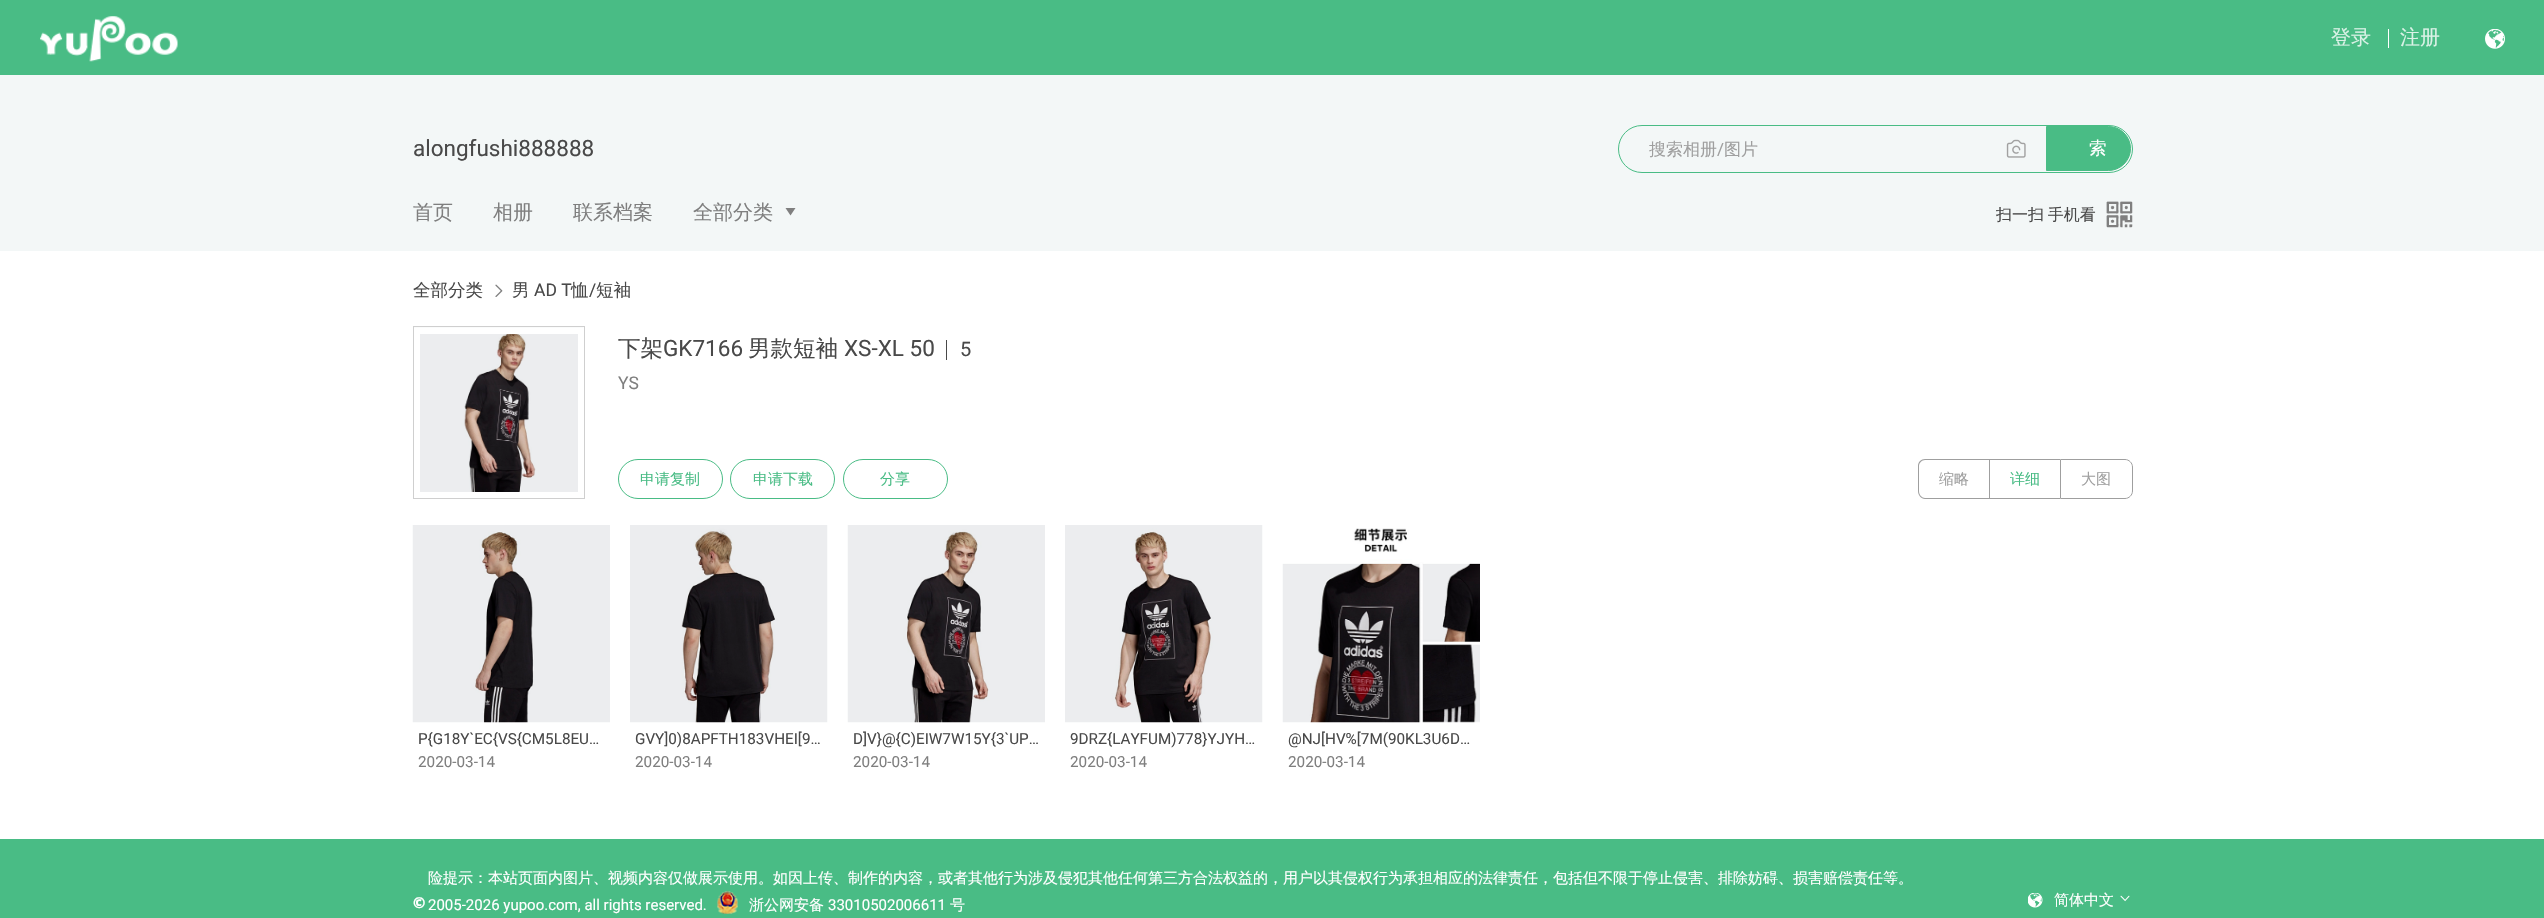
void draw(SkCanvas* canvas) {
	SkPaint paint;
	paint.setAntiAlias(true);
	auto spacedText = [&](const char* s, float x, float y, const SkFont& font, const SkPaint& ink, float letter, float word) {
		std::vector<SkGlyphID> glyphs(font.countText(s, strlen(s), SkTextEncoding::kUTF8));
		std::vector<float> xs(glyphs.size());
		font.textToGlyphs(s, strlen(s), SkTextEncoding::kUTF8, glyphs);
		font.getXPos(glyphs, xs, x);
		float extra = 0;
		for (size_t i = 0; i < glyphs.size(); i++) {
			xs[i] += extra;
			extra += letter + word * (glyphs[i] == font.unicharToGlyph(' '));
		}
		canvas->drawTextBlob(SkTextBlob::MakeFromPosHGlyphs(glyphs, xs, y, font), 0, 0, ink);
	};
	auto svgPath = [&](const char* data, bool evenOdd = false) {
		SkPath result = *SkParsePath::FromSVGString(data);
		if (evenOdd) result.setFillType(SkPathFillType::kEvenOdd);
		return result;
	};
	canvas->clear(0xffffffff);
	paint.setColor(0xff49bc85);
	canvas->drawRect(SkRect::MakeXYWH(0, 0, 2544, 75), paint);
	canvas->drawImageRect(SkImages::DeferredFromEncodedData(SkData::MakeFromFileName("img1.png")), SkRect::MakeXYWH(40, 16, 138, 46), SkSamplingOptions());
	SkFont f1(fontMgr->matchFamilyStyle("WenQuanYi Zen Hei", SkFontStyle(500, SkFontStyle::kNormal_Width, SkFontStyle::kUpright_Slant)), 20);
	f1.setSubpixel(true);
	paint.setColor(0xffdbf2e7);
	canvas->drawString("登录", 2331, 44, f1, paint);
	paint.setColor(0xffffffff);
	canvas->drawRect(SkRect::MakeXYWH(2388, 29, 1, 19), paint);
	paint.setColor(0xffdbf2e7);
	canvas->drawString("注册", 2400, 44, f1, paint);
	canvas->drawImageRect(SkImages::DeferredFromEncodedData(SkData::MakeFromFileName("img2.png")), SkRect::MakeXYWH(2485, 29, 20, 20), SkSamplingOptions());
	paint.setColor(0xfff3f7f7);
	canvas->drawRect(SkRect::MakeXYWH(0, 75, 2544, 176), paint);
	SkFont f2(fontMgr->matchFamilyStyle("Roboto", SkFontStyle::Normal()), 22.5);
	f2.setSubpixel(true);
	paint.setColor(0xff494949);
	canvas->drawString("alongfushi888888", 413, 156, f2, paint);
	paint.setStroke(true);
	paint.setStrokeWidth(1);
	paint.setColor(0xff49bc85);
	canvas->drawRoundRect(SkRect::MakeXYWH(1618.5, 125.5, 514, 47), 23.5, 23.5, paint);
	SkFont f3(fontMgr->matchFamilyStyle("WenQuanYi Zen Hei", SkFontStyle(500, SkFontStyle::kNormal_Width, SkFontStyle::kUpright_Slant)), 17);
	f3.setSubpixel(true);
	paint.setStroke(false);
	paint.setColor(0xff9f9f9f);
	canvas->drawString("搜索相册", 1649, 155, f3, paint);
	SkFont f4(fontMgr->matchFamilyStyle("Roboto", SkFontStyle::Normal()), 17);
	f4.setSubpixel(true);
	canvas->drawString("/", 1717, 155, f4, paint);
	canvas->drawString("图片", 1724, 155, f3, paint);
	canvas->drawImageRect(SkImages::DeferredFromEncodedData(SkData::MakeFromFileName("img3.png")), SkRect::MakeXYWH(2006, 139, 20, 19), SkSamplingOptions());
	paint.setColor(0xff49bc85);
	canvas->drawPath(svgPath("M2046.5 126.5H2108.5C2120.5 126.5 2130.5 136.5 2130.5 148.5C2130.5 160.5 2120.5 170.5 2108.5 170.5H2046.5Z"), paint);
	paint.setStroke(true);
	canvas->drawPath(svgPath("M2046.5 126.5H2108.5C2120.5 126.5 2130.5 136.5 2130.5 148.5C2130.5 160.5 2120.5 170.5 2108.5 170.5H2046.5Z"), paint);
	SkFont f5(fontMgr->matchFamilyStyle("Noto Sans", SkFontStyle::Normal()), 17.5);
	f5.setSubpixel(true);
	paint.setStroke(false);
	paint.setColor(0xffffffff);
	canvas->drawString("搜", 2071, 154, f5, paint);
	SkFont f6(fontMgr->matchFamilyStyle("WenQuanYi Zen Hei", SkFontStyle(500, SkFontStyle::kNormal_Width, SkFontStyle::kUpright_Slant)), 17.5);
	f6.setSubpixel(true);
	canvas->drawString("索", 2089, 154, f6, paint);
	paint.setColor(0xff7f7f7f);
	canvas->drawString("首页", 413, 219, f1, paint);
	canvas->drawString("相册", 493, 219, f1, paint);
	canvas->drawString("联系档案", 573, 219, f1, paint);
	canvas->drawString("全部分类", 693, 219, f1, paint);
	canvas->drawPath(svgPath("M790.5 215.5L785.5 208H795.5Z"), paint);
	SkFont f7(fontMgr->matchFamilyStyle("WenQuanYi Zen Hei", SkFontStyle(500, SkFontStyle::kNormal_Width, SkFontStyle::kUpright_Slant)), 16);
	f7.setSubpixel(true);
	paint.setColor(0xff494949);
	spacedText("扫一扫 手机看", 1996, 220, f7, paint, 0, -1);
	canvas->drawImageRect(SkImages::DeferredFromEncodedData(SkData::MakeFromFileName("img4.png")), SkRect::MakeXYWH(2106, 201, 27, 27), SkSamplingOptions());
	canvas->drawString("全部分类", 413, 296, f6, paint);
	canvas->drawImageRect(SkImages::DeferredFromEncodedData(SkData::MakeFromFileName("img5.png")), SkRect::MakeXYWH(495, 284, 8, 13), SkSamplingOptions());
	canvas->drawString("男", 512, 296, f6, paint);
	SkFont f8(fontMgr->matchFamilyStyle("Roboto", SkFontStyle::Normal()), 17.5);
	f8.setSubpixel(true);
	canvas->drawString("AD T", 534, 296, f8, paint);
	canvas->drawString("恤", 571, 296, f6, paint);
	canvas->drawString("/", 589, 296, f8, paint);
	canvas->drawString("短袖", 596, 296, f6, paint);
	paint.setStroke(true);
	paint.setColor(0xffcfcfcf);
	canvas->drawRect(SkRect::MakeXYWH(413.5, 326.5, 171, 172), paint);
	canvas->drawImageRect(SkImages::DeferredFromEncodedData(SkData::MakeFromFileName("img6.png")), SkRect::MakeXYWH(414, 327, 170, 165), SkSamplingOptions());
	paint.setStrokeWidth(6);
	paint.setColor(0xffffffff);
	canvas->drawRect(SkRect::MakeXYWH(417, 331, 164, 164), paint);
	SkFont f9(fontMgr->matchFamilyStyle("WenQuanYi Zen Hei", SkFontStyle(500, SkFontStyle::kNormal_Width, SkFontStyle::kUpright_Slant)), 22.5);
	f9.setSubpixel(true);
	paint.setStroke(false);
	paint.setColor(0xff494949);
	canvas->drawString("下架", 618, 356, f9, paint);
	canvas->drawString("GK7166", 663, 356, f2, paint);
	canvas->drawString("男款短袖", 748, 356, f9, paint);
	canvas->drawString("XS-XL 50", 844, 356, f2, paint);
	canvas->drawRect(SkRect::MakeXYWH(946, 340, 1, 20), paint);
	SkFont f10(fontMgr->matchFamilyStyle("Roboto", SkFontStyle::Normal()), 20);
	f10.setSubpixel(true);
	canvas->drawString("5", 960, 356, f10, paint);
	paint.setColor(0xff7f7f7f);
	canvas->drawString("YS", 618, 389, f8, paint);
	paint.setStroke(true);
	paint.setStrokeWidth(1);
	paint.setColor(0xff49bc85);
	canvas->drawRoundRect(SkRect::MakeXYWH(618.5, 459.5, 104, 39), 19.5, 19.5, paint);
	SkFont f11(fontMgr->matchFamilyStyle("WenQuanYi Zen Hei", SkFontStyle(500, SkFontStyle::kNormal_Width, SkFontStyle::kUpright_Slant)), 15);
	f11.setSubpixel(true);
	paint.setStroke(false);
	canvas->drawString("申请复制", 640, 484, f11, paint);
	paint.setStroke(true);
	canvas->drawRoundRect(SkRect::MakeXYWH(730.5, 459.5, 104, 39), 19.5, 19.5, paint);
	paint.setStroke(false);
	canvas->drawString("申请下载", 753, 484, f11, paint);
	paint.setStroke(true);
	canvas->drawRoundRect(SkRect::MakeXYWH(843.5, 459.5, 104, 39), 19.5, 19.5, paint);
	paint.setStroke(false);
	canvas->drawString("分享", 880, 484, f11, paint);
	paint.setColor(0xff9f9f9f);
	canvas->drawPath(svgPath("M1925 459H1989V499H1925C1921 499 1918 495 1918 491V466C1918 462 1921 459 1925 459ZM1925 460H1989V498H1925C1922 498 1919 495 1919 491V466C1919 463 1922 460 1925 460Z", true), paint);
	canvas->drawString("缩略", 1939, 484, f11, paint);
	canvas->drawRect(SkRect::MakeXYWH(1989, 459, 71, 1), paint);
	canvas->drawRect(SkRect::MakeXYWH(1989, 498, 71, 1), paint);
	canvas->drawRect(SkRect::MakeXYWH(1989, 459, 1, 40), paint);
	paint.setColor(0xff49bc85);
	canvas->drawString("详细", 2010, 484, f11, paint);
	paint.setStroke(true);
	paint.setColor(0xff9f9f9f);
	canvas->drawPath(svgPath("M2060.5 459.5H2125C2129 459.5 2132.5 463 2132.5 467V491C2132.5 495 2129 498.5 2125 498.5H2060.5Z"), paint);
	paint.setStroke(false);
	canvas->drawString("大图", 2081, 484, f11, paint);
	canvas->drawImageRect(SkImages::DeferredFromEncodedData(SkData::MakeFromFileName("img7.png")), SkRect::MakeXYWH(412, 525, 198, 198), SkSamplingOptions());
	SkFont f12(fontMgr->matchFamilyStyle("Roboto", SkFontStyle::Normal()), 15.25);
	f12.setSubpixel(true);
	paint.setColor(0xff494949);
	canvas->drawString("P{G18Y`EC{VS{CM5L8EU…", 418, 744, f12, paint);
	paint.setColor(0xff7f7f7f);
	canvas->drawString("2020-03-14", 418, 767, f12, paint);
	canvas->drawImageRect(SkImages::DeferredFromEncodedData(SkData::MakeFromFileName("img8.png")), SkRect::MakeXYWH(630, 525, 198, 198), SkSamplingOptions());
	paint.setColor(0xff494949);
	canvas->drawString("GVY]0)8APFTH183VHEI[9…", 635, 744, f12, paint);
	paint.setColor(0xff7f7f7f);
	canvas->drawString("2020-03-14", 635, 767, f12, paint);
	canvas->drawImageRect(SkImages::DeferredFromEncodedData(SkData::MakeFromFileName("img9.png")), SkRect::MakeXYWH(847, 525, 198, 198), SkSamplingOptions());
	paint.setColor(0xff494949);
	canvas->drawString("D]V}@{C)EIW7W15Y{3`UP…", 853, 744, f12, paint);
	paint.setColor(0xff7f7f7f);
	canvas->drawString("2020-03-14", 853, 767, f12, paint);
	canvas->drawImageRect(SkImages::DeferredFromEncodedData(SkData::MakeFromFileName("img10.png")), SkRect::MakeXYWH(1065, 525, 198, 198), SkSamplingOptions());
	paint.setColor(0xff494949);
	canvas->drawString("9DRZ{LAYFUM)778}YJYH…", 1070, 744, f12, paint);
	paint.setColor(0xff7f7f7f);
	canvas->drawString("2020-03-14", 1070, 767, f12, paint);
	canvas->drawImageRect(SkImages::DeferredFromEncodedData(SkData::MakeFromFileName("img11.png")), SkRect::MakeXYWH(1282, 528, 198, 195), SkSamplingOptions());
	paint.setColor(0xff494949);
	canvas->drawString("@NJ[HV%[7M(90KL3U6D…", 1288, 744, f12, paint);
	paint.setColor(0xff7f7f7f);
	canvas->drawString("2020-03-14", 1288, 767, f12, paint);
	paint.setColor(0xff49bc85);
	canvas->drawRect(SkRect::MakeXYWH(0, 839, 2544, 79), paint);
	SkFont f13(fontMgr->matchFamilyStyle("Noto Sans", SkFontStyle::Normal()), 15);
	f13.setSubpixel(true);
	paint.setColor(0xffffffff);
	canvas->drawString("风", 413, 883, f13, paint);
	canvas->drawString("险提示：本站页面内图片、视频内容仅做展示使用。如因上传、制作的内容，或者其他行为涉及侵犯其他任何第三方合法权益的，用户以其侵权行为承担相应的法律责任，包括但不限于停止侵害、排除妨碍、损害赔偿责任等。", 428, 883, f11, paint);
	SkFont f14(fontMgr->matchFamilyStyle("Noto Sans", SkFontStyle(900, SkFontStyle::kNormal_Width, SkFontStyle::kUpright_Slant)), 15);
	f14.setSubpixel(true);
	canvas->drawString("©", 413, 908, f14, paint);
	SkFont f15(fontMgr->matchFamilyStyle("Roboto", SkFontStyle::Normal()), 15);
	f15.setSubpixel(true);
	canvas->drawString("2005-2026 yupoo.com, all rights reserved.", 428, 910, f15, paint);
	canvas->drawImageRect(SkImages::DeferredFromEncodedData(SkData::MakeFromFileName("img12.png")), SkRect::MakeXYWH(717, 891, 21, 23), SkSamplingOptions());
	canvas->drawString("浙公网安备", 749, 910, f11, paint);
	canvas->drawString("33010502006611", 828, 910, f15, paint);
	canvas->drawString("号", 950, 910, f11, paint);
	canvas->drawImageRect(SkImages::DeferredFromEncodedData(SkData::MakeFromFileName("img13.png")), SkRect::MakeXYWH(2028, 893, 15, 15), SkSamplingOptions());
	canvas->drawString("简体中文", 2054, 905, f11, paint);
	canvas->drawImageRect(SkImages::DeferredFromEncodedData(SkData::MakeFromFileName("img14.png")), SkRect::MakeXYWH(2120, 895, 10, 7), SkSamplingOptions());
}
